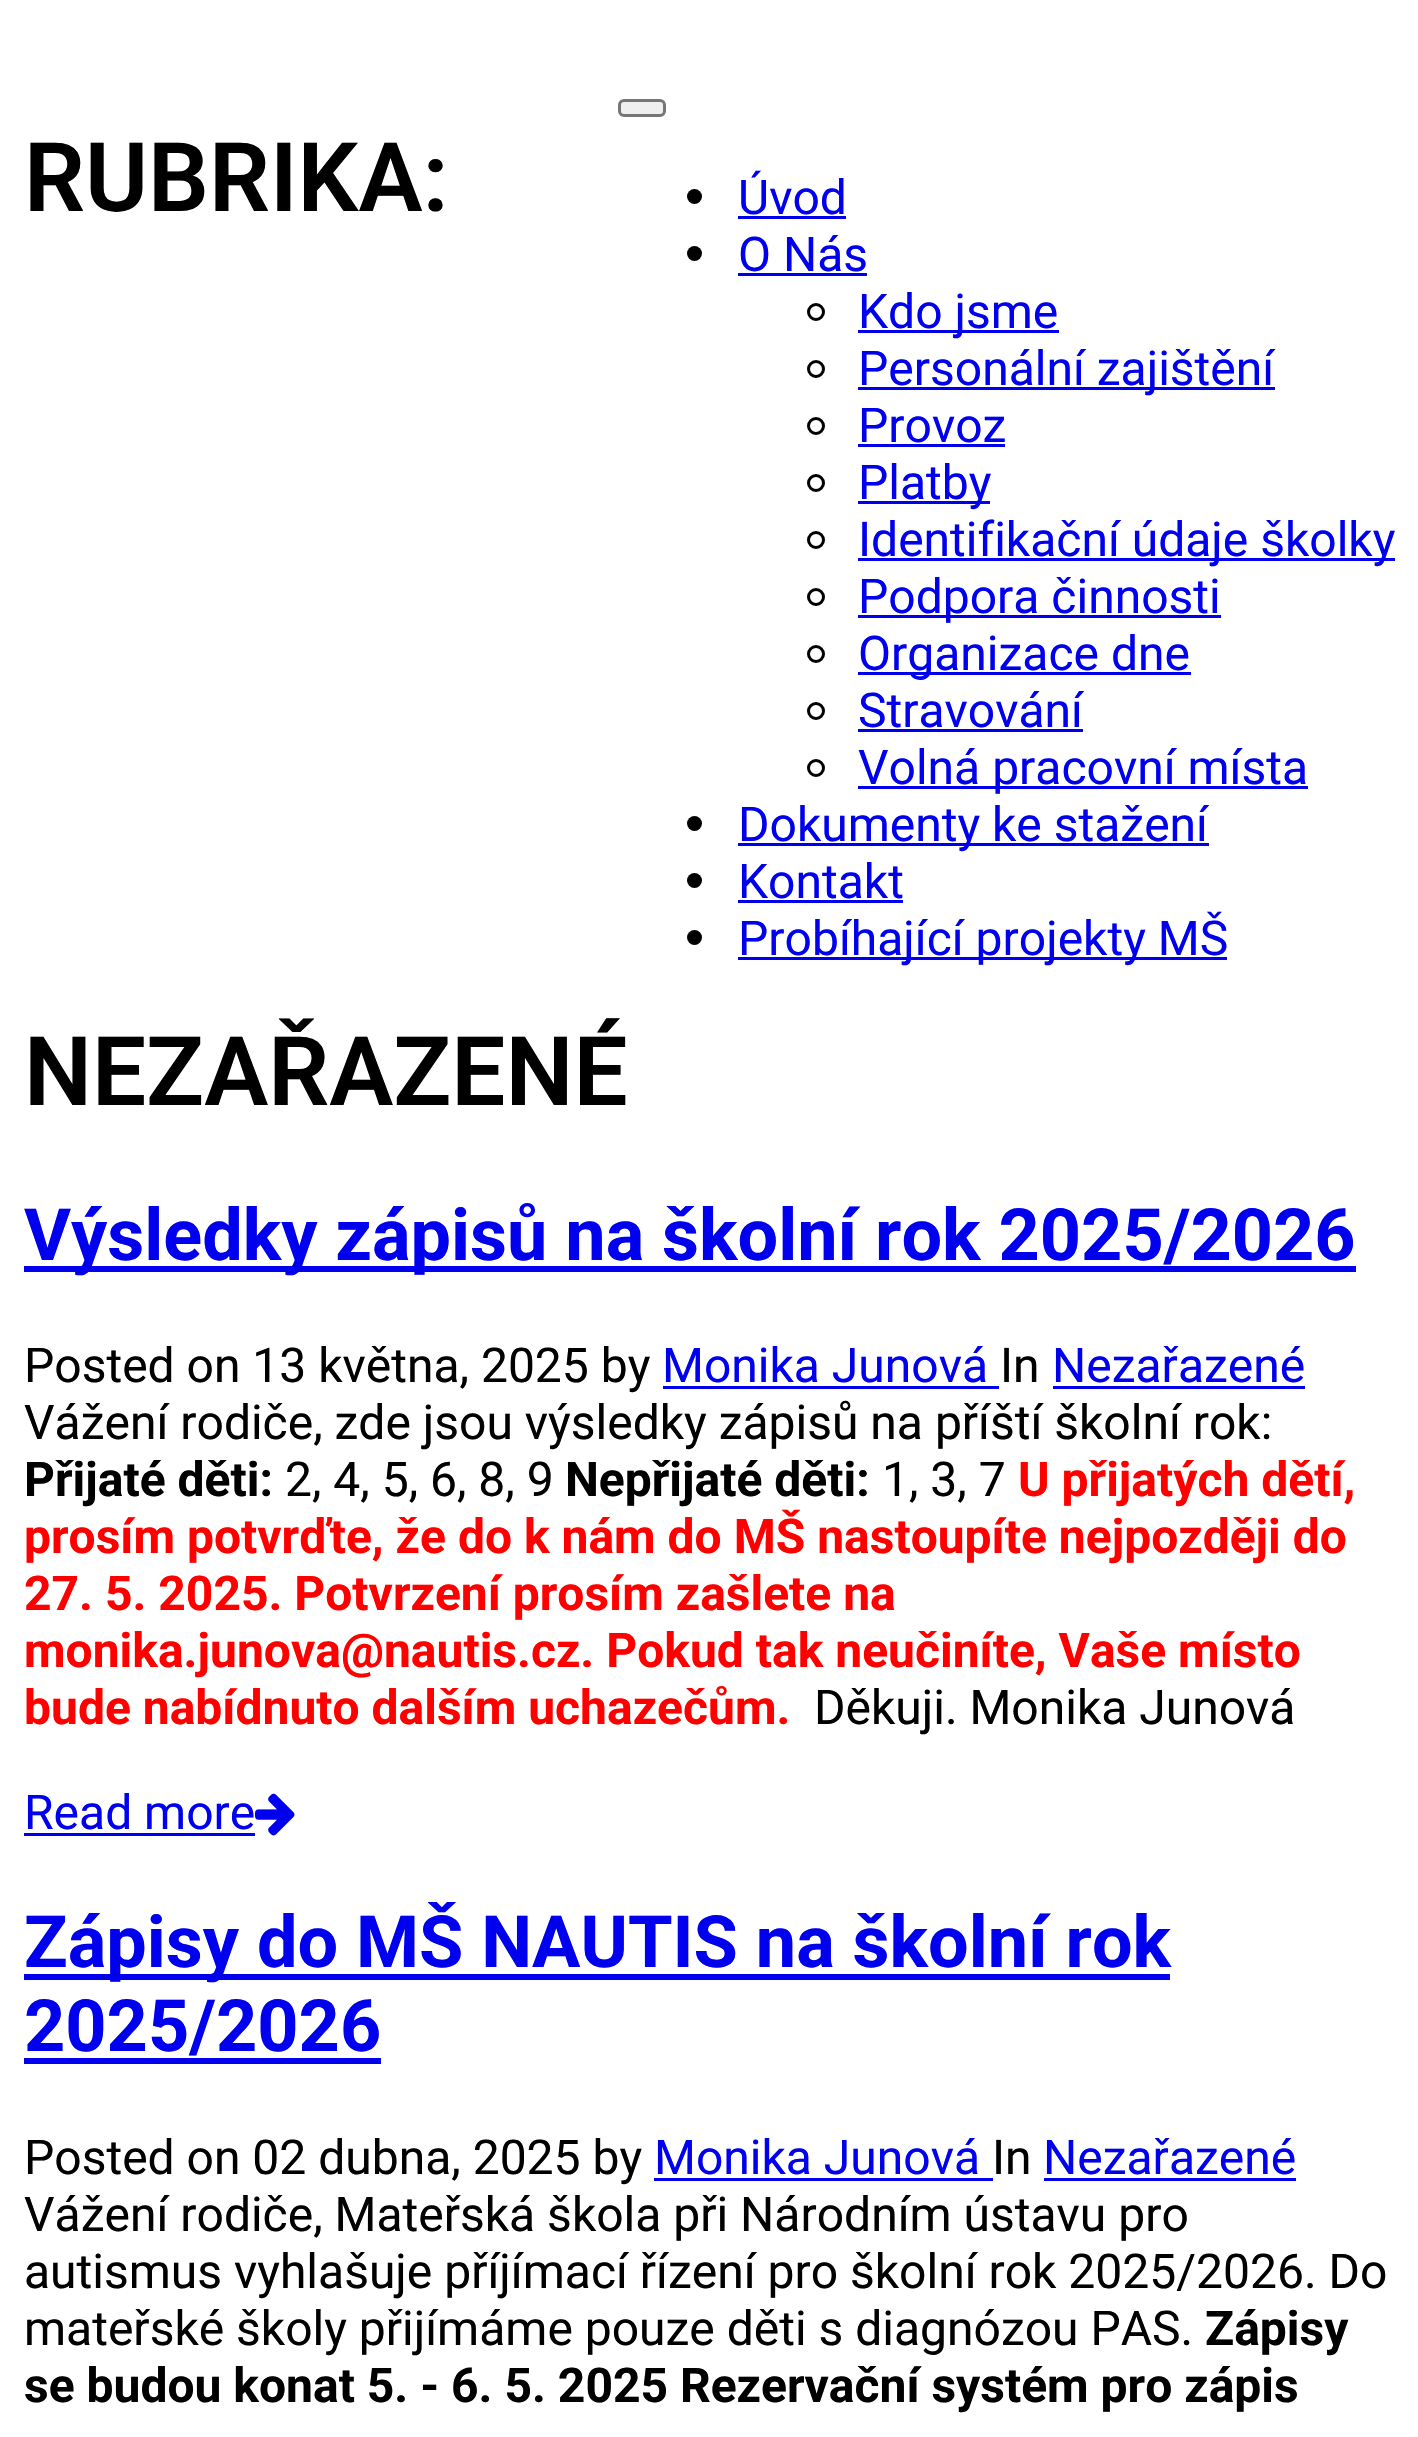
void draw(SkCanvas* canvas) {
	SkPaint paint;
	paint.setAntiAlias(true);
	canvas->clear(0xffffffff);
	SkFont f1(fontMgr->matchFamilyStyle("Roboto", SkFontStyle(600, SkFontStyle::kNormal_Width, SkFontStyle::kUpright_Slant)), 96);
	f1.setSubpixel(true);
	paint.setColor(0xff000000);
	canvas->drawString("RUBRIKA:", 24, 211, f1, paint);
	canvas->drawString("NEZAŘAZENÉ", 24, 1105, f1, paint);
	paint.setColor(0xff0000ee);
	canvas->drawRect(SkRect::MakeXYWH(24, 1266, 1332, 6), paint);
	SkFont f2(fontMgr->matchFamilyStyle("Roboto", SkFontStyle::Bold()), 72);
	f2.setSubpixel(true);
	canvas->drawString("Výsledky zápisů na školní rok 2025/2026", 24, 1260, f2, paint);
	SkFont f3(fontMgr->matchFamilyStyle("Roboto", SkFontStyle::Normal()), 48);
	f3.setSubpixel(true);
	paint.setColor(0xff000000);
	canvas->drawString("Posted on 13 května, 2025 by", 24, 1382, f3, paint);
	paint.setColor(0xff0000ee);
	canvas->drawString("Monika Junová", 662, 1382, f3, paint);
	canvas->drawRect(SkRect::MakeXYWH(663, 1386, 336, 3), paint);
	paint.setColor(0xff000000);
	canvas->drawString("In", 1000, 1382, f3, paint);
	paint.setColor(0xff0000ee);
	canvas->drawString("Nezařazené", 1052, 1382, f3, paint);
	canvas->drawRect(SkRect::MakeXYWH(1053, 1386, 252, 3), paint);
	paint.setColor(0xff000000);
	canvas->drawString("Vážení rodiče, zde jsou výsledky zápisů na příští školní rok:", 24, 1439, f3, paint);
	SkFont f4(fontMgr->matchFamilyStyle("Roboto", SkFontStyle::Bold()), 48);
	f4.setSubpixel(true);
	canvas->drawString("Přijaté děti:", 24, 1496, f4, paint);
	canvas->drawString("2, 4, 5, 6, 8, 9", 285, 1496, f3, paint);
	canvas->drawString("Nepřijaté děti:", 565, 1496, f4, paint);
	canvas->drawString("1, 3, 7", 882, 1496, f3, paint);
	paint.setColor(0xffff0000);
	canvas->drawString("U přijatých dětí,", 1018, 1496, f4, paint);
	canvas->drawString("prosím potvrďte, že do k nám do MŠ nastoupíte nejpozději do", 24, 1553, f4, paint);
	canvas->drawString("27. 5. 2025. Potvrzení prosím zašlete na", 24, 1610, f4, paint);
	canvas->drawString("monika.junova@nautis.cz. Pokud tak neučiníte, Vaše místo", 24, 1667, f4, paint);
	canvas->drawString("bude nabídnuto dalším uchazečům.", 24, 1724, f4, paint);
	paint.setColor(0xff000000);
	canvas->drawString("Děkuji. Monika Junová", 814, 1724, f3, paint);
	paint.setColor(0xff0000ee);
	canvas->drawString("Read more", 24, 1829, f3, paint);
	canvas->drawRect(SkRect::MakeXYWH(24, 1833, 231, 3), paint);
	canvas->drawImageRect(SkImages::DeferredFromEncodedData(SkData::MakeFromFileName("img1.png")), SkRect::MakeXYWH(255, 1793, 40, 43), SkSamplingOptions());
	canvas->drawRect(SkRect::MakeXYWH(24, 1974, 1146, 6), paint);
	canvas->drawString("Zápisy do MŠ NAUTIS na školní rok", 24, 1967, f2, paint);
	canvas->drawString("2025/2026", 24, 2051, f2, paint);
	canvas->drawRect(SkRect::MakeXYWH(24, 2058, 357, 6), paint);
	paint.setColor(0xff000000);
	canvas->drawString("Posted on 02 dubna, 2025 by", 24, 2174, f3, paint);
	paint.setColor(0xff0000ee);
	canvas->drawString("Monika Junová", 654, 2174, f3, paint);
	canvas->drawRect(SkRect::MakeXYWH(654, 2178, 339, 3), paint);
	paint.setColor(0xff000000);
	canvas->drawString("In", 992, 2174, f3, paint);
	paint.setColor(0xff0000ee);
	canvas->drawString("Nezařazené", 1043, 2174, f3, paint);
	canvas->drawRect(SkRect::MakeXYWH(1044, 2178, 252, 3), paint);
	paint.setColor(0xff000000);
	canvas->drawString("Vážení rodiče, Mateřská škola při Národním ústavu pro", 24, 2231, f3, paint);
	canvas->drawString("autismus vyhlašuje příjímací řízení pro školní rok 2025/2026. Do", 24, 2288, f3, paint);
	canvas->drawString("mateřské školy přijímáme pouze děti s diagnózou PAS.", 24, 2345, f3, paint);
	canvas->drawString("Zápisy", 1205, 2345, f4, paint);
	canvas->drawString("se budou konat 5. - 6. 5. 2025 Rezervační systém pro zápis", 24, 2402, f4, paint);
	paint.setColor(0xffefefef);
	canvas->drawRoundRect(SkRect::MakeXYWH(619.5, 100.5, 45, 15), 4.5, 4.5, paint);
	paint.setStroke(true);
	paint.setStrokeWidth(3);
	paint.setColor(0xff767676);
	canvas->drawRoundRect(SkRect::MakeXYWH(619.5, 100.5, 45, 15), 4.5, 4.5, paint);
	paint.setStroke(false);
	paint.setColor(0xff000000);
	canvas->drawCircle(694.5, 196.5, 7.5, paint);
	paint.setColor(0xff0000ee);
	canvas->drawString("Úvod", 738, 214, f3, paint);
	canvas->drawRect(SkRect::MakeXYWH(738, 216, 108, 3), paint);
	paint.setColor(0xff000000);
	canvas->drawCircle(694.5, 253.5, 7.5, paint);
	paint.setColor(0xff0000ee);
	canvas->drawString("O Nás", 738, 271, f3, paint);
	canvas->drawRect(SkRect::MakeXYWH(738, 273, 129, 3), paint);
	paint.setStroke(true);
	paint.setColor(0xff000000);
	canvas->drawCircle(816, 312, 7.5, paint);
	paint.setStroke(false);
	paint.setColor(0xff0000ee);
	canvas->drawRect(SkRect::MakeXYWH(858, 330, 201, 3), paint);
	canvas->drawString("Kdo jsme", 858, 328, f3, paint);
	paint.setStroke(true);
	paint.setColor(0xff000000);
	canvas->drawCircle(816, 369, 7.5, paint);
	paint.setStroke(false);
	paint.setColor(0xff0000ee);
	canvas->drawRect(SkRect::MakeXYWH(858, 387, 417, 3), paint);
	canvas->drawString("Personální zajištění", 858, 385, f3, paint);
	paint.setStroke(true);
	paint.setColor(0xff000000);
	canvas->drawCircle(816, 426, 7.5, paint);
	paint.setStroke(false);
	paint.setColor(0xff0000ee);
	canvas->drawString("Provoz", 858, 442, f3, paint);
	canvas->drawRect(SkRect::MakeXYWH(858, 444, 147, 3), paint);
	paint.setStroke(true);
	paint.setColor(0xff000000);
	canvas->drawCircle(816, 483, 7.5, paint);
	paint.setStroke(false);
	paint.setColor(0xff0000ee);
	canvas->drawRect(SkRect::MakeXYWH(858, 501, 132, 3), paint);
	canvas->drawString("Platby", 858, 499, f3, paint);
	paint.setStroke(true);
	paint.setColor(0xff000000);
	canvas->drawCircle(816, 540, 7.5, paint);
	paint.setStroke(false);
	paint.setColor(0xff0000ee);
	canvas->drawRect(SkRect::MakeXYWH(858, 558, 537, 3), paint);
	canvas->drawString("Identifikační údaje školky", 858, 556, f3, paint);
	paint.setStroke(true);
	paint.setColor(0xff000000);
	canvas->drawCircle(816, 597, 7.5, paint);
	paint.setStroke(false);
	paint.setColor(0xff0000ee);
	canvas->drawRect(SkRect::MakeXYWH(858, 615, 363, 3), paint);
	canvas->drawString("Podpora činnosti", 858, 613, f3, paint);
	paint.setStroke(true);
	paint.setColor(0xff000000);
	canvas->drawCircle(816, 654, 7.5, paint);
	paint.setStroke(false);
	paint.setColor(0xff0000ee);
	canvas->drawRect(SkRect::MakeXYWH(858, 672, 333, 3), paint);
	canvas->drawString("Organizace dne", 858, 670, f3, paint);
	paint.setStroke(true);
	paint.setColor(0xff000000);
	canvas->drawCircle(816, 711, 7.5, paint);
	paint.setStroke(false);
	paint.setColor(0xff0000ee);
	canvas->drawString("Stravování", 858, 727, f3, paint);
	canvas->drawRect(SkRect::MakeXYWH(858, 729, 225, 3), paint);
	paint.setStroke(true);
	paint.setColor(0xff000000);
	canvas->drawCircle(816, 768, 7.5, paint);
	paint.setStroke(false);
	paint.setColor(0xff0000ee);
	canvas->drawRect(SkRect::MakeXYWH(858, 786, 450, 3), paint);
	canvas->drawString("Volná pracovní místa", 858, 784, f3, paint);
	paint.setColor(0xff000000);
	canvas->drawCircle(694.5, 823.5, 7.5, paint);
	paint.setColor(0xff0000ee);
	canvas->drawRect(SkRect::MakeXYWH(738, 843, 471, 3), paint);
	canvas->drawString("Dokumenty ke stažení", 738, 841, f3, paint);
	paint.setColor(0xff000000);
	canvas->drawCircle(694.5, 880.5, 7.5, paint);
	paint.setColor(0xff0000ee);
	canvas->drawString("Kontakt", 738, 898, f3, paint);
	canvas->drawRect(SkRect::MakeXYWH(738, 900, 165, 3), paint);
	paint.setColor(0xff000000);
	canvas->drawCircle(694.5, 937.5, 7.5, paint);
	paint.setColor(0xff0000ee);
	canvas->drawRect(SkRect::MakeXYWH(738, 957, 489, 3), paint);
	canvas->drawString("Probíhající projekty MŠ", 738, 955, f3, paint);
}
